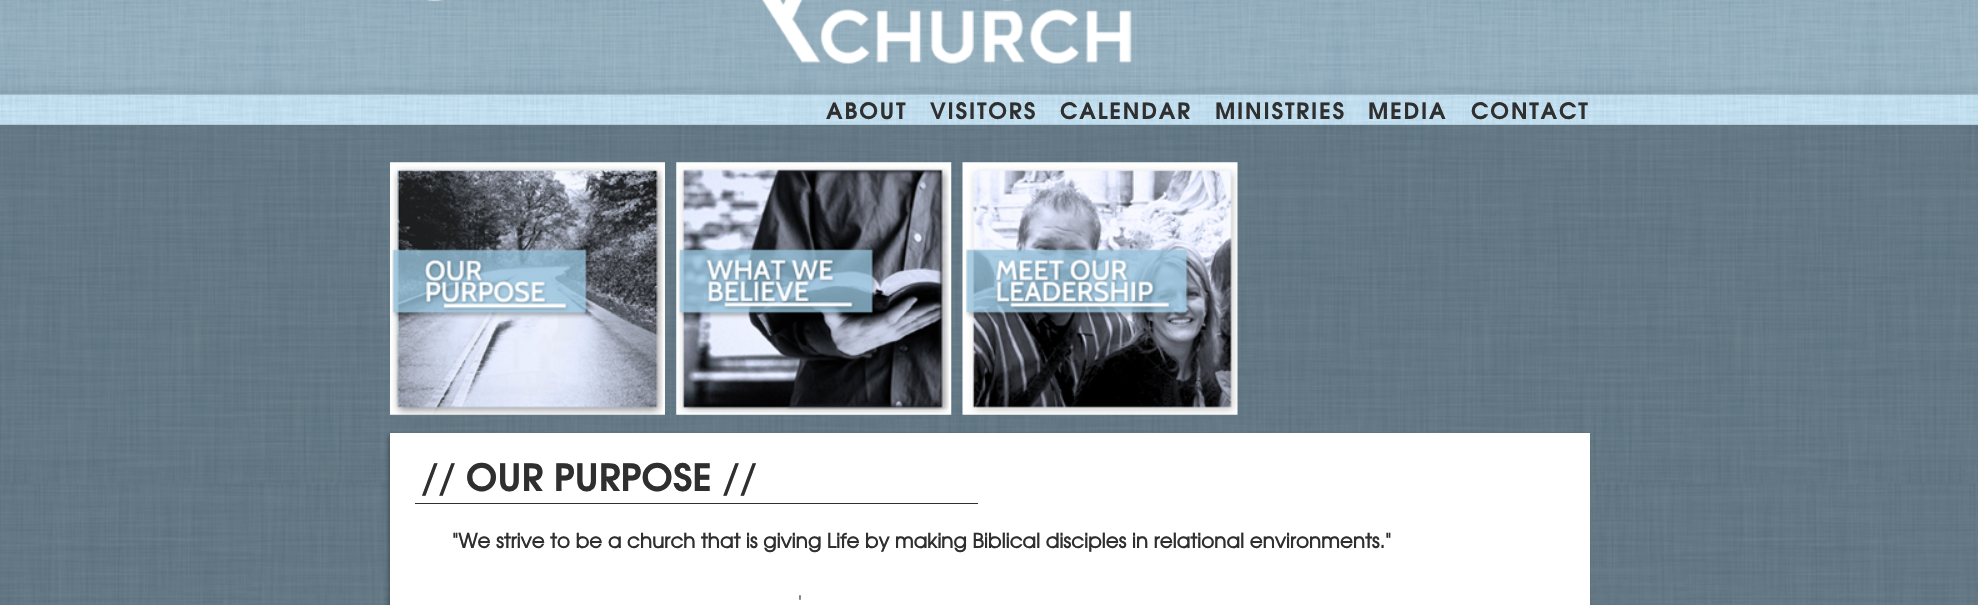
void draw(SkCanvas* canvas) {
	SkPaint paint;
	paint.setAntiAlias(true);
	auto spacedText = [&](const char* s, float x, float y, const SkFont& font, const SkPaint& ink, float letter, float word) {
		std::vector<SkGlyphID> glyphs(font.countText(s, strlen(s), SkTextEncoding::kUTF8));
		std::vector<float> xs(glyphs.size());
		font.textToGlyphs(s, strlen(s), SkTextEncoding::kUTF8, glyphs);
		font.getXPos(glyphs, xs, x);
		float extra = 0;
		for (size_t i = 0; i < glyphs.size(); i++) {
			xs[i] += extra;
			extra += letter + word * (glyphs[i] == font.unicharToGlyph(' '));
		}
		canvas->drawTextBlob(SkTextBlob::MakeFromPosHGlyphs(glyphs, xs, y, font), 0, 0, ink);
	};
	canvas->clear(0xffffffff);
	canvas->drawImageRect(SkImages::DeferredFromEncodedData(SkData::MakeFromFileName("img1.png")), SkRect::MakeXYWH(0, 0, 1978, 125), SkSamplingOptions());
	canvas->drawImageRect(SkImages::DeferredFromEncodedData(SkData::MakeFromFileName("img2.png")), SkRect::MakeXYWH(426, 0, 706, 64), SkSamplingOptions());
	SkFont f1(fontMgr->matchFamilyStyle("TeX Gyre Adventor", SkFontStyle::Bold()), 22.5);
	f1.setSubpixel(true);
	paint.setColor(0xff2f2f2f);
	spacedText("ABOUT", 826, 119, f1, paint, 1.75, 0);
	spacedText("VISITORS", 930, 119, f1, paint, 1.75, 0);
	spacedText("CALENDAR", 1060, 119, f1, paint, 1.75, 0);
	spacedText("MINISTRIES", 1215, 119, f1, paint, 1.75, 0);
	spacedText("MEDIA", 1368, 119, f1, paint, 1.75, 0);
	spacedText("CONTACT", 1471, 119, f1, paint, 1.75, 0);
	canvas->drawImageRect(SkImages::DeferredFromEncodedData(SkData::MakeFromFileName("img3.png")), SkRect::MakeXYWH(0, 124, 1978, 481), SkSamplingOptions());
	canvas->drawImageRect(SkImages::DeferredFromEncodedData(SkData::MakeFromFileName("img4.png")), SkRect::MakeXYWH(390, 162, 275, 253), SkSamplingOptions());
	canvas->drawImageRect(SkImages::DeferredFromEncodedData(SkData::MakeFromFileName("img5.png")), SkRect::MakeXYWH(676, 162, 276, 253), SkSamplingOptions());
	canvas->drawImageRect(SkImages::DeferredFromEncodedData(SkData::MakeFromFileName("img6.png")), SkRect::MakeXYWH(962, 162, 276, 253), SkSamplingOptions());
	paint.setColor(0x4d000000);
	paint.setMaskFilter(SkMaskFilter::MakeBlur(kNormal_SkBlurStyle, 2));
	canvas->drawRect(SkRect::MakeXYWH(388, 435, 1200, 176), paint);
	paint.setMaskFilter(nullptr);
	paint.setColor(0xffffffff);
	canvas->drawRect(SkRect::MakeXYWH(390, 433, 1200, 172), paint);
	paint.setColor(0xff2f2f2f);
	canvas->drawRect(SkRect::MakeXYWH(415, 503, 563, 1), paint);
	SkFont f2(fontMgr->matchFamilyStyle("TeX Gyre Adventor", SkFontStyle::Bold()), 37.5);
	f2.setSubpixel(true);
	canvas->drawString("// OUR PURPOSE //", 421, 491, f2, paint);
	SkFont f3(fontMgr->matchFamilyStyle("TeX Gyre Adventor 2", SkFontStyle::Bold()), 20);
	f3.setSubpixel(true);
	canvas->drawString("\"We strive to be a church that is giving Life by making Biblical disciples in relational environments.\"", 452, 548, f3, paint);
	SkFont f4(fontMgr->matchFamilyStyle("TeX Gyre Adventor", SkFontStyle::Normal()), 20);
	f4.setSubpixel(true);
	canvas->drawString("'", 798, 610, f4, paint);
}
